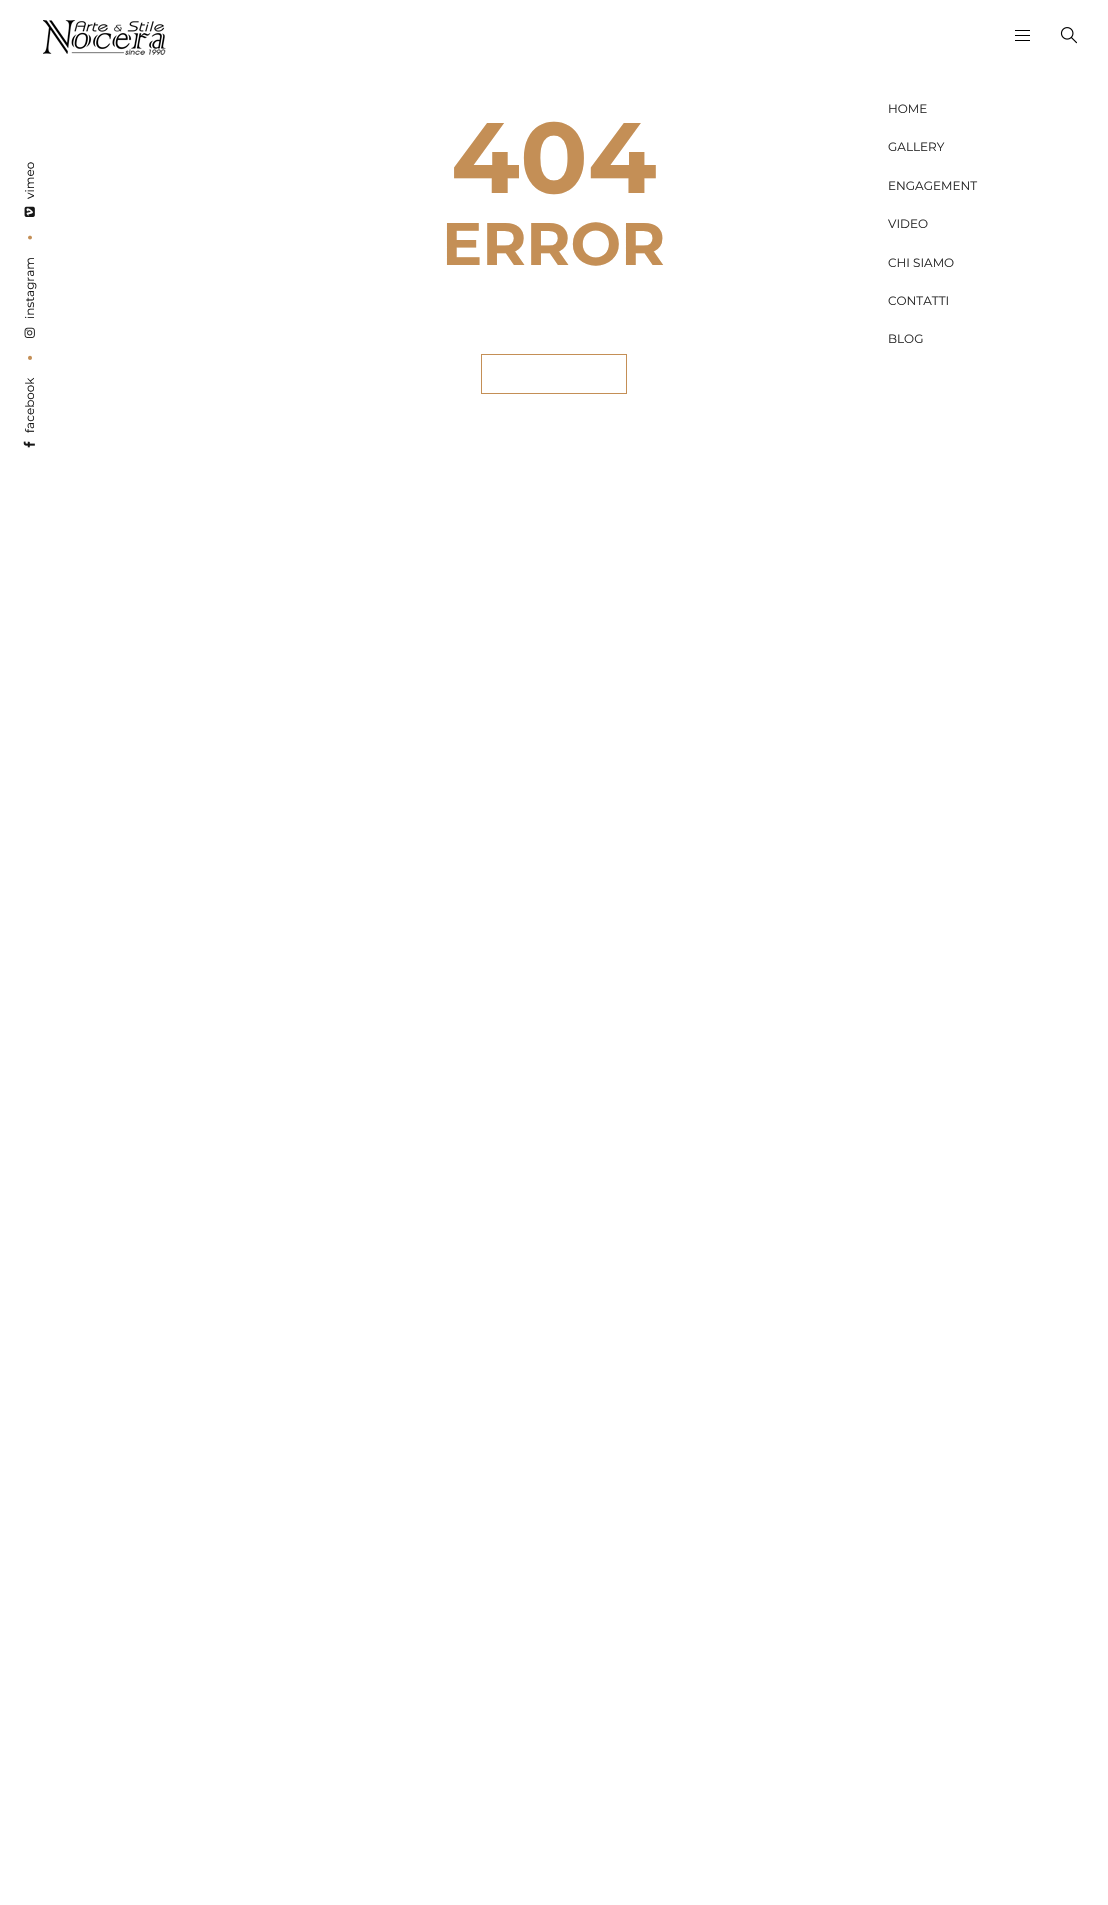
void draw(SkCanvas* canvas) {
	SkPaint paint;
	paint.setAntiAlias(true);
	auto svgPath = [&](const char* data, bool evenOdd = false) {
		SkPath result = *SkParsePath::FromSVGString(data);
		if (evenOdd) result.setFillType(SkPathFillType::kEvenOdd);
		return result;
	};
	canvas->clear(0xffffffff);
	SkFont f1(fontMgr->matchFamilyStyle("Montserrat", SkFontStyle::Normal()), 12);
	f1.setSubpixel(true);
	paint.setColor(0xff161616);
	canvas->save();
	canvas->rotate(-90, 34, 199);
	canvas->drawString("vimeo", 34, 199, f1, paint);
	canvas->restore();
	canvas->drawImageRect(SkImages::DeferredFromEncodedData(SkData::MakeFromFileName("img1.png")), SkRect::MakeXYWH(24, 206, 11, 11), SkSamplingOptions());
	paint.setColor(0xffc48f56);
	canvas->drawPath(svgPath("M28 237.5C28 235 32 235 32 237.5C32 240 28 240 28 237.5Z"), paint);
	paint.setColor(0xff161616);
	canvas->save();
	canvas->rotate(-90, 34, 319);
	canvas->drawString("instagram", 34, 319, f1, paint);
	canvas->restore();
	canvas->drawImageRect(SkImages::DeferredFromEncodedData(SkData::MakeFromFileName("img2.png")), SkRect::MakeXYWH(24, 327, 11, 11), SkSamplingOptions());
	paint.setColor(0xffc48f56);
	canvas->drawPath(svgPath("M28 358C28 355 32 355 32 358C32 360.5 28 360.5 28 358Z"), paint);
	paint.setColor(0xff161616);
	canvas->save();
	canvas->rotate(-90, 34, 433);
	canvas->drawString("facebook", 34, 433, f1, paint);
	canvas->restore();
	canvas->drawImageRect(SkImages::DeferredFromEncodedData(SkData::MakeFromFileName("img3.png")), SkRect::MakeXYWH(23, 441, 12, 7), SkSamplingOptions());
	SkFont f2(fontMgr->matchFamilyStyle("Montserrat", SkFontStyle::Bold()), 100);
	f2.setSubpixel(true);
	paint.setColor(0xffc48f56);
	canvas->drawString("404", 451, 193, f2, paint);
	SkFont f3(fontMgr->matchFamilyStyle("Montserrat", SkFontStyle::Bold()), 60);
	f3.setSubpixel(true);
	canvas->drawString("ERROR", 442, 265, f3, paint);
	paint.setStroke(true);
	paint.setStrokeWidth(1);
	canvas->drawRect(SkRect::MakeXYWH(481.5, 354.5, 145, 39), paint);
	canvas->drawImageRect(SkImages::DeferredFromEncodedData(SkData::MakeFromFileName("img4.png")), SkRect::MakeXYWH(43, 20, 123, 35), SkSamplingOptions());
	paint.setStroke(false);
	paint.setColor(0xff000000);
	canvas->drawRect(SkRect::MakeXYWH(1015, 30, 15, 1), paint);
	canvas->drawRect(SkRect::MakeXYWH(1015, 35, 15, 1), paint);
	canvas->drawRect(SkRect::MakeXYWH(1015, 40, 15, 1), paint);
	canvas->drawImageRect(SkImages::DeferredFromEncodedData(SkData::MakeFromFileName("img5.png")), SkRect::MakeXYWH(1060, 27, 17, 17), SkSamplingOptions());
	paint.setColor(0xff292929);
	canvas->drawString("HOME", 888, 113, f1, paint);
	canvas->drawString("GALLERY", 888, 151, f1, paint);
	canvas->drawString("ENGAGEMENT", 888, 190, f1, paint);
	canvas->drawString("VIDEO", 888, 228, f1, paint);
	canvas->drawString("CHI SIAMO", 888, 267, f1, paint);
	canvas->drawString("CONTATTI", 888, 305, f1, paint);
	canvas->drawString("BLOG", 888, 343, f1, paint);
}
